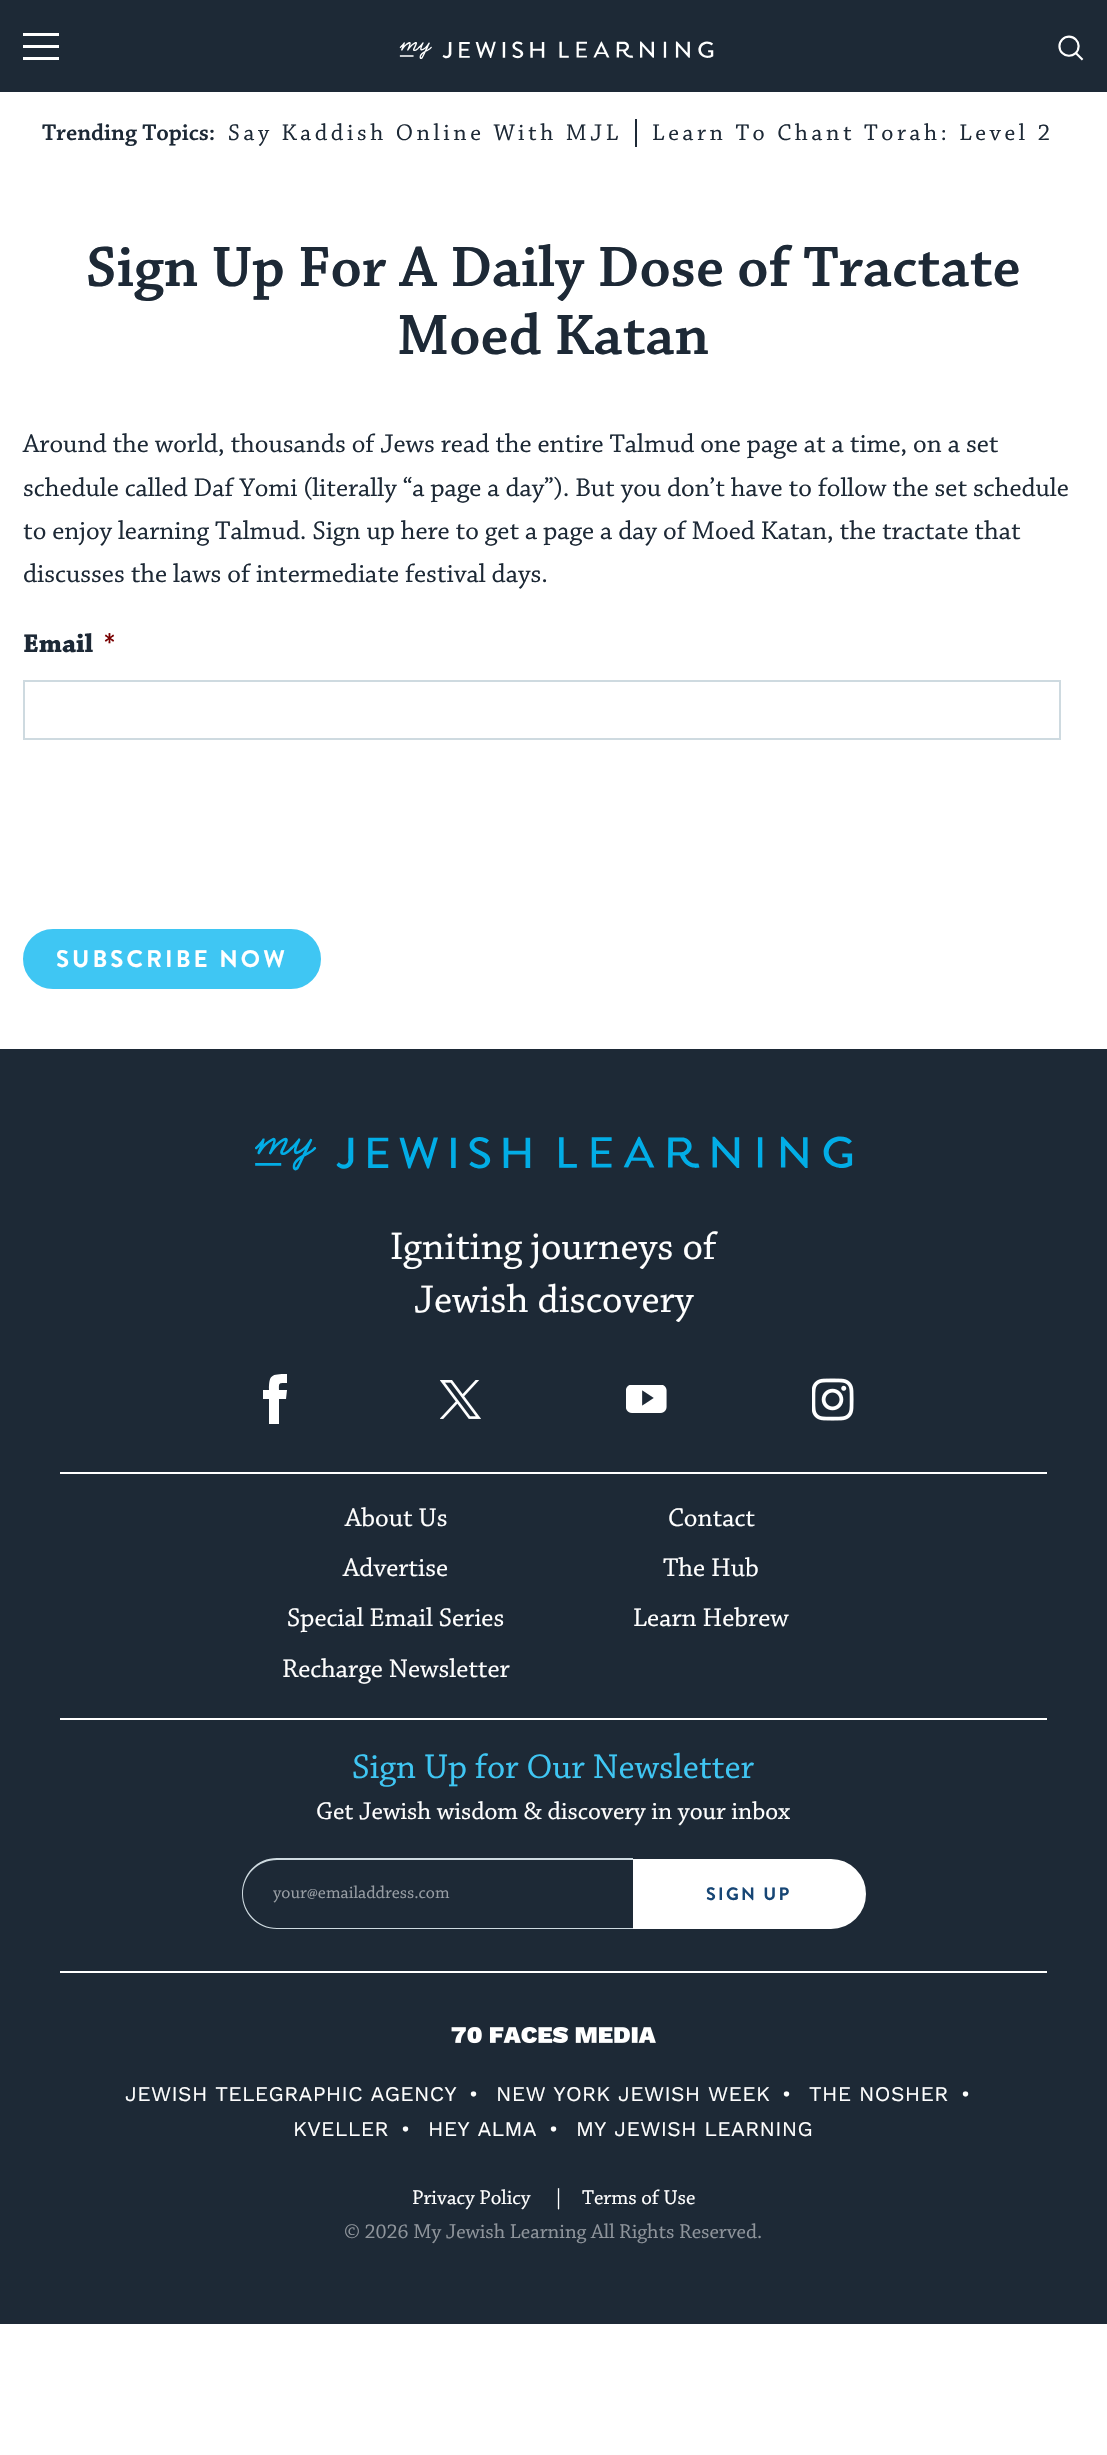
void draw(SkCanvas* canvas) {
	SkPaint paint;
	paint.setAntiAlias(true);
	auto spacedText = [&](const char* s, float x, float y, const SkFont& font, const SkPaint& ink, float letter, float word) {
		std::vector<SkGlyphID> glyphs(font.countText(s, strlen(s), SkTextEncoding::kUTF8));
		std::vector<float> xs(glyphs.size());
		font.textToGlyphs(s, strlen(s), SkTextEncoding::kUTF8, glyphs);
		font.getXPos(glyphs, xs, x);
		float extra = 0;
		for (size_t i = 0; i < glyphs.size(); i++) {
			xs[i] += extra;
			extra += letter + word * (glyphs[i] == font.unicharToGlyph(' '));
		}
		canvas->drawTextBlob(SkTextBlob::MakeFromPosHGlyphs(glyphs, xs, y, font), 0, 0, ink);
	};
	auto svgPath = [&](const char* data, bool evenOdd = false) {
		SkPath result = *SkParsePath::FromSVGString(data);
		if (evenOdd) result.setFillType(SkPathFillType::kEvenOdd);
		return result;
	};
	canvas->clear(0xffffffff);
	paint.setColor(0xff1d2936);
	canvas->drawRect(SkRect::MakeXYWH(0, 0, 1107, 92), paint);
	paint.setColor(0xffffffff);
	canvas->drawRect(SkRect::MakeXYWH(23, 57, 36, 3), paint);
	canvas->drawRect(SkRect::MakeXYWH(23, 33, 36, 3), paint);
	canvas->drawRect(SkRect::MakeXYWH(23, 45, 36, 3), paint);
	canvas->drawImageRect(SkImages::DeferredFromEncodedData(SkData::MakeFromFileName("img1.png")), SkRect::MakeXYWH(399, 41, 315, 18), SkSamplingOptions());
	canvas->drawImageRect(SkImages::DeferredFromEncodedData(SkData::MakeFromFileName("img2.png")), SkRect::MakeXYWH(1058, 35, 26, 26), SkSamplingOptions());
	SkFont f1(fontMgr->matchFamilyStyle("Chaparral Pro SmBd", SkFontStyle(600, SkFontStyle::kNormal_Width, SkFontStyle::kUpright_Slant)), 24);
	f1.setSubpixel(true);
	paint.setColor(0xff1d2936);
	canvas->drawString("Trending Topics:", 42, 140, f1, paint);
	SkFont f2(fontMgr->matchFamilyStyle("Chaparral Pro", SkFontStyle::Normal()), 24);
	f2.setSubpixel(true);
	spacedText("Say Kaddish Online With MJL", 228, 140, f2, paint, 3.6, 0);
	spacedText("Learn To Chant Torah: Level 2", 652, 140, f2, paint, 3.6, 0);
	canvas->drawRect(SkRect::MakeXYWH(635, 119, 2, 28), paint);
	SkFont f3(fontMgr->matchFamilyStyle("Chaparral Pro SmBd", SkFontStyle(600, SkFontStyle::kNormal_Width, SkFontStyle::kUpright_Slant)), 60);
	f3.setSubpixel(true);
	canvas->drawString("Sign Up For A Daily Dose of Tractate", 86, 286, f3, paint);
	canvas->drawString("Moed Katan", 397, 354, f3, paint);
	SkFont f4(fontMgr->matchFamilyStyle("Chaparral Pro", SkFontStyle::Normal()), 27);
	f4.setSubpixel(true);
	canvas->drawString("Around the world, thousands of Jews read the entire Talmud one page at a time, on a set", 23, 452, f4, paint);
	canvas->drawString("schedule called Daf Yomi (literally “a page a day”). But you don’t have to follow the set schedule", 23, 496, f4, paint);
	canvas->drawString("to enjoy learning Talmud. Sign up here to get a page a day of Moed Katan, the tractate that", 23, 539, f4, paint);
	canvas->drawString("discusses the laws of intermediate festival days.", 23, 582, f4, paint);
	SkFont f5(fontMgr->matchFamilyStyle("Chaparral Pro", SkFontStyle::Bold()), 27);
	f5.setSubpixel(true);
	canvas->drawString("Email", 23, 652, f5, paint);
	paint.setColor(0xff790000);
	canvas->drawString("*", 104, 652, f5, paint);
	paint.setStroke(true);
	paint.setStrokeWidth(2);
	paint.setColor(0xffcedae0);
	canvas->drawRect(SkRect::MakeXYWH(24, 681, 1036, 58), paint);
	paint.setStroke(false);
	paint.setColor(0xff3fc6f3);
	canvas->drawRoundRect(SkRect::MakeXYWH(24.5, 930.5, 295, 57), 28.5, 28.5, paint);
	paint.setStroke(true);
	paint.setStrokeWidth(3);
	canvas->drawRoundRect(SkRect::MakeXYWH(24.5, 930.5, 295, 57), 28.5, 28.5, paint);
	SkFont f6(fontMgr->matchFamilyStyle("Brandon Grotesque", SkFontStyle::Bold()), 24);
	f6.setSubpixel(true);
	paint.setStroke(false);
	paint.setColor(0xffffffff);
	spacedText("SUBSCRIBE NOW", 56, 967, f6, paint, 3.1, 0);
	paint.setColor(0xff1d2936);
	canvas->drawRect(SkRect::MakeXYWH(0, 1049, 1107, 1275), paint);
	paint.setColor(0xffffffff);
	canvas->drawRect(SkRect::MakeXYWH(60, 1472, 987, 2), paint);
	canvas->drawImageRect(SkImages::DeferredFromEncodedData(SkData::MakeFromFileName("img3.png")), SkRect::MakeXYWH(255, 1136, 598, 35), SkSamplingOptions());
	SkFont f7(fontMgr->matchFamilyStyle("Chaparral Pro", SkFontStyle::Normal()), 40.5);
	f7.setSubpixel(true);
	canvas->drawString("Igniting journeys of", 390, 1259, f7, paint);
	canvas->drawString("Jewish discovery", 414, 1312, f7, paint);
	canvas->drawPath(svgPath("M279 1424H269V1399H263V1390H269C269 1375 271 1374 287 1374V1383C278 1383 279 1383 279 1390H287L286 1399H279Z", true), paint);
	canvas->drawImageRect(SkImages::DeferredFromEncodedData(SkData::MakeFromFileName("img4.png")), SkRect::MakeXYWH(440, 1380, 41, 39), SkSamplingOptions());
	canvas->drawImageRect(SkImages::DeferredFromEncodedData(SkData::MakeFromFileName("img5.png")), SkRect::MakeXYWH(626, 1385, 41, 28), SkSamplingOptions());
	canvas->drawImageRect(SkImages::DeferredFromEncodedData(SkData::MakeFromFileName("img6.png")), SkRect::MakeXYWH(812, 1378, 42, 43), SkSamplingOptions());
	canvas->drawRect(SkRect::MakeXYWH(60, 1718, 987, 2), paint);
	canvas->drawString("About Us", 345, 1526, f4, paint);
	canvas->drawString("Contact", 668, 1526, f4, paint);
	canvas->drawString("Advertise", 343, 1576, f4, paint);
	canvas->drawString("The Hub", 663, 1576, f4, paint);
	canvas->drawString("Special Email Series", 287, 1626, f4, paint);
	canvas->drawString("Learn Hebrew", 633, 1626, f4, paint);
	canvas->drawString("Recharge Newsletter", 282, 1677, f4, paint);
	canvas->drawRect(SkRect::MakeXYWH(60, 1971, 987, 2), paint);
	SkFont f8(fontMgr->matchFamilyStyle("Chaparral Pro", SkFontStyle::Normal()), 36);
	f8.setSubpixel(true);
	paint.setColor(0xff3fc6f3);
	canvas->drawString("Sign Up for Our Newsletter", 352, 1778, f8, paint);
	SkFont f9(fontMgr->matchFamilyStyle("Chaparral Pro", SkFontStyle::Normal()), 25.5);
	f9.setSubpixel(true);
	paint.setColor(0xffffffff);
	canvas->drawString("Get Jewish wisdom & discovery in your inbox", 316, 1819, f9, paint);
	paint.setColor(0xffcedae0);
	canvas->drawPath(svgPath("M277 1858H633V1929H277C257 1929 242 1913 242 1894C242 1874 257 1858 277 1858ZM277 1860H633V1928H277C258 1928 243 1912 243 1894C243 1875 258 1860 277 1860Z", true), paint);
	SkFont f10(fontMgr->matchFamilyStyle("Chaparral Pro", SkFontStyle::Normal()), 18);
	f10.setSubpixel(true);
	paint.setColor(0xff979da3);
	canvas->drawString("your@emailaddress.com", 273, 1898, f10, paint);
	paint.setColor(0xffffffff);
	canvas->drawPath(svgPath("M634.5 1860.5H831C849.5 1860.5 864.5 1875.5 864.5 1894C864.5 1912.5 849.5 1927.5 831 1927.5H634.5Z"), paint);
	paint.setStroke(true);
	canvas->drawPath(svgPath("M634.5 1860.5H831C849.5 1860.5 864.5 1875.5 864.5 1894C864.5 1912.5 849.5 1927.5 831 1927.5H634.5Z"), paint);
	SkFont f11(fontMgr->matchFamilyStyle("Brandon Grotesque", SkFontStyle::Bold()), 18);
	f11.setSubpixel(true);
	paint.setStroke(false);
	paint.setColor(0xff174675);
	spacedText("SIGN UP", 706, 1900, f11, paint, 2.25, 0);
	canvas->drawImageRect(SkImages::DeferredFromEncodedData(SkData::MakeFromFileName("img7.png")), SkRect::MakeXYWH(451, 2027, 205, 17), SkSamplingOptions());
	SkFont f12(fontMgr->matchFamilyStyle("Work Sans", SkFontStyle::Normal()), 21);
	f12.setSubpixel(true);
	paint.setColor(0xffffffff);
	spacedText("JEWISH TELEGRAPHIC AGENCY", 125, 2101, f12, paint, 0.35, 0);
	canvas->drawString("•", 469, 2101, f12, paint);
	spacedText("NEW YORK JEWISH WEEK", 496, 2101, f12, paint, 0.35, 0);
	canvas->drawString("•", 782, 2101, f12, paint);
	spacedText("THE NOSHER", 809, 2101, f12, paint, 0.35, 0);
	canvas->drawString("•", 961, 2101, f12, paint);
	spacedText("KVELLER", 293, 2136, f12, paint, 0.35, 0);
	canvas->drawString("•", 401, 2136, f12, paint);
	spacedText("HEY ALMA", 428, 2136, f12, paint, 0.35, 0);
	canvas->drawString("•", 549, 2136, f12, paint);
	spacedText("MY JEWISH LEARNING", 576, 2136, f12, paint, 0.35, 0);
	SkFont f13(fontMgr->matchFamilyStyle("Chaparral Pro", SkFontStyle::Normal()), 21);
	f13.setSubpixel(true);
	canvas->drawString("Privacy Policy", 412, 2204, f13, paint);
	canvas->drawString("|", 553, 2204, f13, paint);
	canvas->drawString("Terms of Use", 582, 2204, f13, paint);
	paint.setColor(0xff8e949b);
	canvas->drawString("© 2026 My Jewish Learning All Rights Reserved.", 344, 2238, f13, paint);
}
